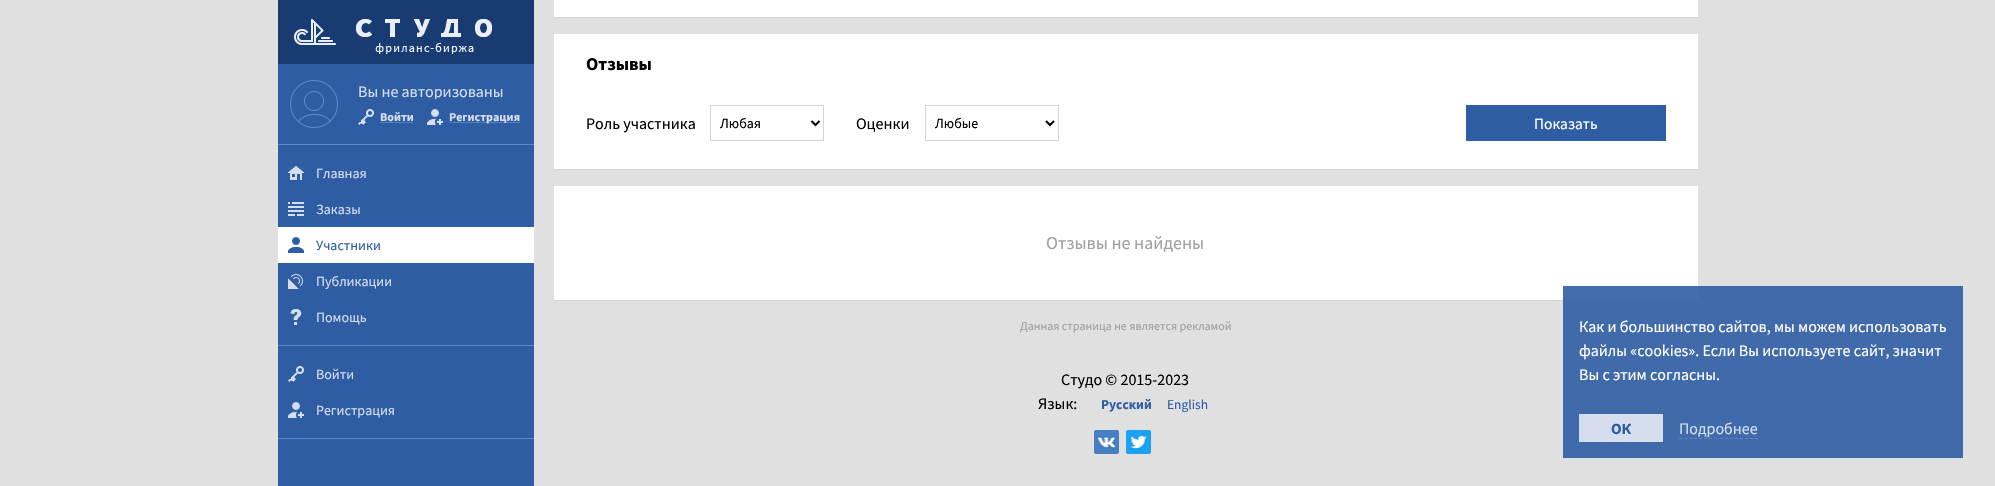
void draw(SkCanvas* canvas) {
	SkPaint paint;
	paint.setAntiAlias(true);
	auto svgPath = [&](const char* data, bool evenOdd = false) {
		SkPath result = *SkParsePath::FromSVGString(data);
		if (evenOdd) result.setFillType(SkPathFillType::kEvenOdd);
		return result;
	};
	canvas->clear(0xffe0e0e0);
	paint.setColor(0xff406aaa);
	canvas->drawRect(SkRect::MakeXYWH(1563, 286, 400, 172), paint);
	paint.setColor(0xff2e5da4);
	canvas->drawRect(SkRect::MakeXYWH(278, 64, 256, 422), paint);
	paint.setColor(0xff183b71);
	canvas->drawRect(SkRect::MakeXYWH(278, 0, 256, 64), paint);
	canvas->drawImageRect(SkImages::DeferredFromEncodedData(SkData::MakeFromFileName("img1.png")), SkRect::MakeXYWH(294, 19, 198, 35), SkSamplingOptions());
	paint.setColor(0xff598ac7);
	canvas->drawRect(SkRect::MakeXYWH(278, 144, 256, 1), paint);
	canvas->drawImageRect(SkImages::DeferredFromEncodedData(SkData::MakeFromFileName("img2.png")), SkRect::MakeXYWH(290, 80, 48, 48), SkSamplingOptions());
	canvas->save();
	canvas->clipRect(SkRect::MakeXYWH(358, 83, 145, 16));
	SkFont f1(fontMgr->matchFamilyStyle("Source Sans Pro", SkFontStyle::Normal()), 16);
	f1.setSubpixel(true);
	paint.setColor(0xffd5deed);
	canvas->drawString("Вы не авторизованы", 358, 97, f1, paint);
	canvas->restore();
	canvas->drawImageRect(SkImages::DeferredFromEncodedData(SkData::MakeFromFileName("img3.png")), SkRect::MakeXYWH(358, 109, 16, 16), SkSamplingOptions());
	SkFont f2(fontMgr->matchFamilyStyle("Source Sans Pro", SkFontStyle::Bold()), 12);
	f2.setSubpixel(true);
	canvas->drawString("Войти", 380, 121, f2, paint);
	paint.setColor(0xff5081c0);
	canvas->drawRect(SkRect::MakeXYWH(380, 122, 33, 1), paint);
	canvas->drawImageRect(SkImages::DeferredFromEncodedData(SkData::MakeFromFileName("img4.png")), SkRect::MakeXYWH(427, 109, 16, 16), SkSamplingOptions());
	canvas->drawRect(SkRect::MakeXYWH(449, 122, 71, 1), paint);
	paint.setColor(0xffd5deed);
	canvas->drawString("Регистрация", 449, 121, f2, paint);
	paint.setColor(0xff598ac7);
	canvas->drawRect(SkRect::MakeXYWH(278, 345, 256, 1), paint);
	canvas->drawImageRect(SkImages::DeferredFromEncodedData(SkData::MakeFromFileName("img5.png")), SkRect::MakeXYWH(288, 166, 16, 14), SkSamplingOptions());
	SkFont f3(fontMgr->matchFamilyStyle("Source Sans Pro", SkFontStyle::Normal()), 14);
	f3.setSubpixel(true);
	paint.setColor(0xffd5deed);
	canvas->drawString("Главная", 316, 178, f3, paint);
	canvas->drawImageRect(SkImages::DeferredFromEncodedData(SkData::MakeFromFileName("img6.png")), SkRect::MakeXYWH(288, 202, 16, 14), SkSamplingOptions());
	canvas->drawString("Заказы", 316, 214, f3, paint);
	paint.setColor(0xffffffff);
	canvas->drawRect(SkRect::MakeXYWH(278, 227, 256, 36), paint);
	canvas->drawImageRect(SkImages::DeferredFromEncodedData(SkData::MakeFromFileName("img7.png")), SkRect::MakeXYWH(288, 237, 16, 16), SkSamplingOptions());
	paint.setColor(0xff2e5da4);
	canvas->drawString("Участники", 316, 250, f3, paint);
	canvas->drawImageRect(SkImages::DeferredFromEncodedData(SkData::MakeFromFileName("img8.png")), SkRect::MakeXYWH(288, 274, 15, 15), SkSamplingOptions());
	paint.setColor(0xffd5deed);
	canvas->drawString("Публикации", 316, 286, f3, paint);
	canvas->drawImageRect(SkImages::DeferredFromEncodedData(SkData::MakeFromFileName("img9.png")), SkRect::MakeXYWH(290, 309, 12, 16), SkSamplingOptions());
	canvas->drawString("Помощь", 316, 322, f3, paint);
	paint.setColor(0xff598ac7);
	canvas->drawRect(SkRect::MakeXYWH(278, 438, 256, 1), paint);
	canvas->drawImageRect(SkImages::DeferredFromEncodedData(SkData::MakeFromFileName("img10.png")), SkRect::MakeXYWH(288, 366, 16, 16), SkSamplingOptions());
	paint.setColor(0xffd5deed);
	canvas->drawString("Войти", 316, 379, f3, paint);
	canvas->drawImageRect(SkImages::DeferredFromEncodedData(SkData::MakeFromFileName("img11.png")), SkRect::MakeXYWH(288, 402, 16, 16), SkSamplingOptions());
	canvas->drawString("Регистрация", 316, 415, f3, paint);
	paint.setColor(0xffffffff);
	canvas->drawRect(SkRect::MakeXYWH(554, 0, 1144, 169), paint);
	paint.setColor(0xffd4d4d4);
	canvas->drawRect(SkRect::MakeXYWH(554, 17, 1144, 1), paint);
	paint.setColor(0xffe0e0e0);
	canvas->drawRect(SkRect::MakeXYWH(554, 18, 1144, 16), paint);
	paint.setColor(0xffd4d4d4);
	canvas->drawRect(SkRect::MakeXYWH(554, 169, 1144, 1), paint);
	SkFont f4(fontMgr->matchFamilyStyle("Source Sans Pro", SkFontStyle::Bold()), 18);
	f4.setSubpixel(true);
	paint.setColor(0xff000000);
	canvas->drawString("Отзывы", 586, 70, f4, paint);
	canvas->drawString("Роль участника", 586, 129, f1, paint);
	paint.setStroke(true);
	paint.setStrokeWidth(1);
	paint.setColor(0xffd4d4d4);
	canvas->drawRect(SkRect::MakeXYWH(710.5, 105.5, 113, 35), paint);
	paint.setStrokeWidth(2);
	paint.setColor(0xff000000);
	canvas->drawPath(svgPath("M811.5 121L815.5 125L819.5 121"), paint);
	paint.setStroke(false);
	canvas->drawString("Любая", 720, 128, f3, paint);
	canvas->drawString("Оценки", 856, 129, f1, paint);
	paint.setStroke(true);
	paint.setStrokeWidth(1);
	paint.setColor(0xffd4d4d4);
	canvas->drawRect(SkRect::MakeXYWH(925.5, 105.5, 133, 35), paint);
	paint.setStrokeWidth(2);
	paint.setColor(0xff000000);
	canvas->drawPath(svgPath("M1046 121L1050 125L1054 121"), paint);
	paint.setStroke(false);
	canvas->drawString("Любые", 935, 128, f3, paint);
	paint.setColor(0xff2e5da4);
	canvas->drawRect(SkRect::MakeXYWH(1466, 105, 200, 36), paint);
	SkFont f5(fontMgr->matchFamilyStyle("Source Sans Pro", SkFontStyle::Normal()), 15.5);
	f5.setSubpixel(true);
	paint.setColor(0xffffffff);
	canvas->drawString("Показать", 1534, 129, f5, paint);
	canvas->drawRect(SkRect::MakeXYWH(554, 186, 1144, 114), paint);
	paint.setColor(0xff436dad);
	canvas->drawRect(SkRect::MakeXYWH(1563, 286, 135, 14), paint);
	paint.setColor(0xffd4d4d4);
	canvas->drawRect(SkRect::MakeXYWH(554, 300, 1009, 1), paint);
	SkFont f6(fontMgr->matchFamilyStyle("Source Sans Pro", SkFontStyle::Normal()), 18);
	f6.setSubpixel(true);
	paint.setColor(0xffa0a0a0);
	canvas->drawString("Отзывы не найдены", 1046, 249, f6, paint);
	SkFont f7(fontMgr->matchFamilyStyle("Source Sans Pro", SkFontStyle::Normal()), 12);
	f7.setSubpixel(true);
	canvas->drawString("Данная страница не является рекламой", 1020, 330, f7, paint);
	paint.setColor(0xffffffff);
	canvas->drawString("Как и большинство сайтов, мы можем использовать", 1579, 332, f1, paint);
	canvas->drawString("файлы «cookies». Если Вы используете сайт, значит", 1579, 356, f1, paint);
	canvas->drawString("Вы с этим согласны.", 1579, 380, f1, paint);
	paint.setColor(0xffd5deed);
	canvas->drawRect(SkRect::MakeXYWH(1579, 414, 84, 28), paint);
	SkFont f8(fontMgr->matchFamilyStyle("Source Sans Pro", SkFontStyle::Bold()), 15.5);
	f8.setSubpixel(true);
	paint.setColor(0xff2e5da4);
	canvas->drawString("ОК", 1611, 434, f8, paint);
	paint.setColor(0xffd5deed);
	canvas->drawString("Подробнее", 1679, 434, f1, paint);
	paint.setStroke(true);
	paint.setStrokeWidth(1);
	paint.setColor(0xff598ac7);
	paint.setPathEffect(SkDashPathEffect::Make({{3, 2.07f}}, 0));
	canvas->drawPath(svgPath("M1679 438.5H1758"), paint);
	paint.setPathEffect(nullptr);
	paint.setStroke(false);
	paint.setColor(0xff000000);
	canvas->drawString("Студо © 2015-2023", 1061, 385, f1, paint);
	canvas->drawString("Язык:", 1038, 409, f1, paint);
	SkFont f9(fontMgr->matchFamilyStyle("Source Sans Pro", SkFontStyle::Bold()), 13.5);
	f9.setSubpixel(true);
	paint.setColor(0xff2e5da4);
	canvas->drawString("Русский", 1101, 409, f9, paint);
	SkFont f10(fontMgr->matchFamilyStyle("Source Sans Pro", SkFontStyle::Normal()), 13.5);
	f10.setSubpixel(true);
	canvas->drawString("English", 1167, 409, f10, paint);
	canvas->drawImageRect(SkImages::DeferredFromEncodedData(SkData::MakeFromFileName("img12.png")), SkRect::MakeXYWH(1094, 430, 25, 24), SkSamplingOptions());
	canvas->drawImageRect(SkImages::DeferredFromEncodedData(SkData::MakeFromFileName("img13.png")), SkRect::MakeXYWH(1126, 430, 25, 24), SkSamplingOptions());
}
